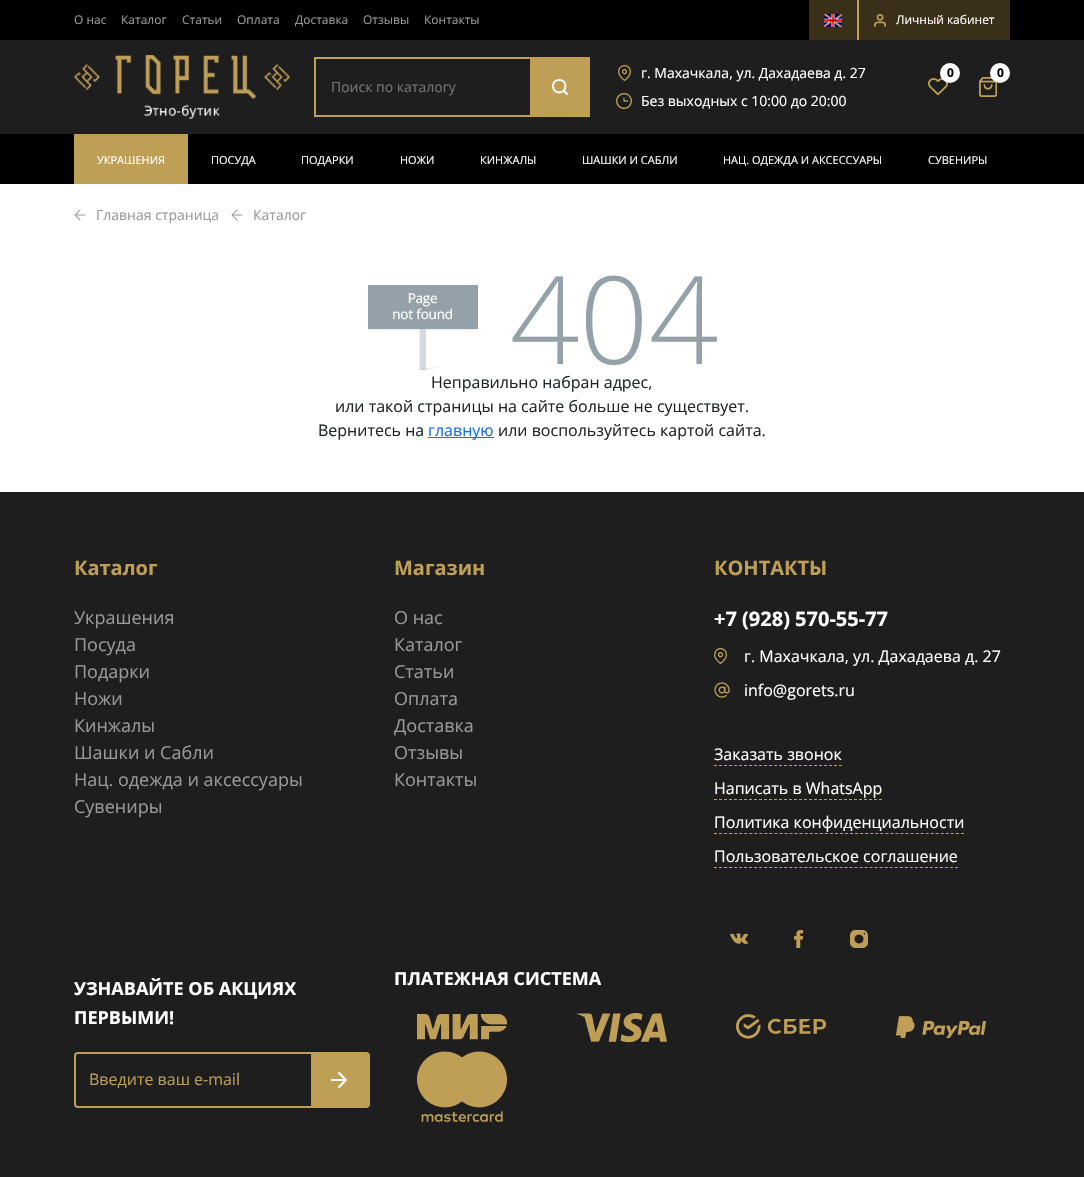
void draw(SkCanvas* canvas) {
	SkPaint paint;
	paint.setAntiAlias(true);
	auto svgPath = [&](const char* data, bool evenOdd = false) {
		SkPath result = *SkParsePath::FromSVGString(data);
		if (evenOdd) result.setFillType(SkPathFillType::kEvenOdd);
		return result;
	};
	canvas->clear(0xffffffff);
	paint.setColor(0xff000000);
	canvas->drawRect(SkRect::MakeXYWH(0, 0, 1084, 40), paint);
	SkFont f1(fontMgr->matchFamilyStyle("Open Sans", SkFontStyle::Normal()), 12);
	f1.setSubpixel(true);
	paint.setColor(0xff999999);
	canvas->drawString("О нас", 74, 24, f1, paint);
	canvas->drawString("Каталог", 121, 24, f1, paint);
	canvas->drawString("Статьи", 182, 24, f1, paint);
	canvas->drawString("Оплата", 237, 24, f1, paint);
	canvas->drawString("Доставка", 295, 24, f1, paint);
	canvas->drawString("Отзывы", 363, 24, f1, paint);
	canvas->drawString("Контакты", 424, 24, f1, paint);
	paint.setColor(0xff3a301a);
	canvas->drawRect(SkRect::MakeXYWH(809, 0, 48, 40), paint);
	paint.setColor(0xffbf9f56);
	canvas->drawRect(SkRect::MakeXYWH(857, 0, 2, 40), paint);
	canvas->drawImageRect(SkImages::DeferredFromEncodedData(SkData::MakeFromFileName("img1.png")), SkRect::MakeXYWH(824, 14, 18, 13), SkSamplingOptions());
	paint.setColor(0xff3a301a);
	canvas->drawRect(SkRect::MakeXYWH(859, 0, 151, 40), paint);
	canvas->drawImageRect(SkImages::DeferredFromEncodedData(SkData::MakeFromFileName("img2.png")), SkRect::MakeXYWH(874, 14, 12, 13), SkSamplingOptions());
	paint.setColor(0xffffffff);
	canvas->drawString("Личный кабинет", 896, 24, f1, paint);
	paint.setColor(0xff1e1e1e);
	canvas->drawRect(SkRect::MakeXYWH(0, 40, 1084, 94), paint);
	canvas->drawImageRect(SkImages::DeferredFromEncodedData(SkData::MakeFromFileName("img3.png")), SkRect::MakeXYWH(74, 55, 216, 64), SkSamplingOptions());
	canvas->drawImageRect(SkImages::DeferredFromEncodedData(SkData::MakeFromFileName("img4.png")), SkRect::MakeXYWH(618, 65, 13, 16), SkSamplingOptions());
	SkFont f2(fontMgr->matchFamilyStyle("Open Sans", SkFontStyle::Normal()), 14);
	f2.setSubpixel(true);
	paint.setColor(0xffffffff);
	canvas->drawString("г. Махачкала, ул. Дахадаева д. 27", 641, 78, f2, paint);
	canvas->drawImageRect(SkImages::DeferredFromEncodedData(SkData::MakeFromFileName("img5.png")), SkRect::MakeXYWH(616, 93, 16, 16), SkSamplingOptions());
	canvas->drawString("Без выходных с 10:00 до 20:00", 641, 106, f2, paint);
	canvas->drawImageRect(SkImages::DeferredFromEncodedData(SkData::MakeFromFileName("img6.png")), SkRect::MakeXYWH(928, 78, 20, 17), SkSamplingOptions());
	canvas->drawCircle(950, 73, 10, paint);
	SkFont f3(fontMgr->matchFamilyStyle("Open Sans", SkFontStyle::Bold()), 12);
	f3.setSubpixel(true);
	paint.setColor(0xff000000);
	canvas->drawString("0", 947, 77, f3, paint);
	canvas->drawImageRect(SkImages::DeferredFromEncodedData(SkData::MakeFromFileName("img7.png")), SkRect::MakeXYWH(979, 77, 18, 20), SkSamplingOptions());
	paint.setColor(0xffffffff);
	canvas->drawCircle(1000, 73, 10, paint);
	paint.setColor(0xff000000);
	canvas->drawString("0", 997, 77, f3, paint);
	paint.setStroke(true);
	paint.setStrokeWidth(2);
	paint.setColor(0xffbf9f56);
	canvas->drawRect(SkRect::MakeXYWH(315, 58, 274, 58), paint);
	paint.setStroke(false);
	paint.setColor(0xff757575);
	canvas->drawString("Поиск по каталогу", 331, 92, f2, paint);
	paint.setColor(0xffbf9f56);
	canvas->drawRect(SkRect::MakeXYWH(530, 59, 58, 56), paint);
	paint.setStroke(true);
	paint.setStrokeCap(SkPaint::kRound_Cap);
	paint.setStrokeJoin(SkPaint::kRound_Join);
	paint.setColor(0xffffffff);
	canvas->drawPath(svgPath("M567 94L563.5 90.5M565.5 86C565.5 94.5 553 94.5 553 86C553 78 565.5 78 565.5 86Z"), paint);
	paint.setStroke(false);
	paint.setColor(0xff000000);
	canvas->drawRect(SkRect::MakeXYWH(0, 134, 1084, 50), paint);
	paint.setColor(0xffbf9f56);
	canvas->drawRect(SkRect::MakeXYWH(74, 134, 114, 50), paint);
	SkFont f4(fontMgr->matchFamilyStyle("Open Sans", SkFontStyle::Normal()), 11);
	f4.setSubpixel(true);
	paint.setColor(0xffffffff);
	canvas->drawString("УКРАШЕНИЯ", 97, 164, f4, paint);
	canvas->drawString("ПОСУДА", 211, 164, f4, paint);
	canvas->drawString("ПОДАРКИ", 301, 164, f4, paint);
	canvas->drawString("НОЖИ", 400, 164, f4, paint);
	canvas->drawString("КИНЖАЛЫ", 480, 164, f4, paint);
	canvas->drawString("ШАШКИ И САБЛИ", 582, 164, f4, paint);
	canvas->drawString("НАЦ. ОДЕЖДА И АКСЕССУАРЫ", 723, 164, f4, paint);
	canvas->drawString("СУВЕНИРЫ", 928, 164, f4, paint);
	canvas->drawImageRect(SkImages::DeferredFromEncodedData(SkData::MakeFromFileName("img8.png")), SkRect::MakeXYWH(74, 209, 12, 12), SkSamplingOptions());
	paint.setColor(0xff999999);
	canvas->drawString("Главная страница", 96, 220, f2, paint);
	canvas->drawImageRect(SkImages::DeferredFromEncodedData(SkData::MakeFromFileName("img8.png")), SkRect::MakeXYWH(231, 209, 12, 12), SkSamplingOptions());
	canvas->drawString("Каталог", 253, 220, f2, paint);
	canvas->drawImageRect(SkImages::DeferredFromEncodedData(SkData::MakeFromFileName("img9.png")), SkRect::MakeXYWH(368, 275, 349, 95), SkSamplingOptions());
	SkFont f5(fontMgr->matchFamilyStyle("Open Sans", SkFontStyle::Normal()), 16);
	f5.setSubpixel(true);
	paint.setColor(0xff212529);
	canvas->drawString("Неправильно набран адрес,", 431, 388, f5, paint);
	canvas->drawString("или такой страницы на сайте больше не существует.", 335, 412, f5, paint);
	canvas->drawString("Вернитесь на", 318, 436, f5, paint);
	paint.setColor(0xff0d6efd);
	canvas->drawRect(SkRect::MakeXYWH(428, 437, 66, 1), paint);
	canvas->drawString("главную", 428, 436, f5, paint);
	paint.setColor(0xff212529);
	canvas->drawString("или воспользуйтесь картой сайта.", 498, 436, f5, paint);
	paint.setColor(0xff1e1e1e);
	canvas->drawRect(SkRect::MakeXYWH(0, 492, 1084, 685), paint);
	SkFont f6(fontMgr->matchFamilyStyle("Open Sans", SkFontStyle::Bold()), 20);
	f6.setSubpixel(true);
	paint.setColor(0xffbf9f56);
	canvas->drawString("Каталог", 74, 575, f6, paint);
	SkFont f7(fontMgr->matchFamilyStyle("Open Sans", SkFontStyle::Normal()), 18);
	f7.setSubpixel(true);
	paint.setColor(0xff999999);
	canvas->drawString("Украшения", 74, 624, f7, paint);
	canvas->drawString("Посуда", 74, 651, f7, paint);
	canvas->drawString("Подарки", 74, 678, f7, paint);
	canvas->drawString("Ножи", 74, 705, f7, paint);
	canvas->drawString("Кинжалы", 74, 732, f7, paint);
	canvas->drawString("Шашки и Сабли", 74, 759, f7, paint);
	canvas->drawString("Нац. одежда и аксессуары", 74, 786, f7, paint);
	canvas->drawString("Сувениры", 74, 813, f7, paint);
	paint.setColor(0xffbf9f56);
	canvas->drawString("Магазин", 394, 575, f6, paint);
	paint.setColor(0xff999999);
	canvas->drawString("О нас", 394, 624, f7, paint);
	canvas->drawString("Каталог", 394, 651, f7, paint);
	canvas->drawString("Статьи", 394, 678, f7, paint);
	canvas->drawString("Оплата", 394, 705, f7, paint);
	canvas->drawString("Доставка", 394, 732, f7, paint);
	canvas->drawString("Отзывы", 394, 759, f7, paint);
	canvas->drawString("Контакты", 394, 786, f7, paint);
	paint.setColor(0xffbf9f56);
	canvas->drawString("КОНТАКТЫ", 714, 575, f6, paint);
	paint.setColor(0xffffffff);
	canvas->drawString("+7 (928) 570-55-77", 714, 626, f6, paint);
	canvas->drawImageRect(SkImages::DeferredFromEncodedData(SkData::MakeFromFileName("img10.png")), SkRect::MakeXYWH(714, 648, 13, 16), SkSamplingOptions());
	canvas->drawString("г. Махачкала, ул. Дахадаева д. 27", 744, 662, f5, paint);
	canvas->drawImageRect(SkImages::DeferredFromEncodedData(SkData::MakeFromFileName("img11.png")), SkRect::MakeXYWH(714, 682, 16, 16), SkSamplingOptions());
	canvas->drawString("info@gorets.ru", 744, 696, f5, paint);
	canvas->drawString("Заказать звонок", 714, 760, f5, paint);
	paint.setStroke(true);
	paint.setStrokeWidth(1);
	paint.setStrokeCap(SkPaint::kButt_Cap);
	paint.setStrokeJoin(SkPaint::kMiter_Join);
	paint.setColor(0xffbf9f56);
	paint.setPathEffect(SkDashPathEffect::Make({{3, 2}}, 0));
	canvas->drawPath(svgPath("M714 765.5H842"), paint);
	paint.setPathEffect(nullptr);
	paint.setStroke(false);
	paint.setColor(0xffffffff);
	canvas->drawString("Написать в WhatsApp", 714, 794, f5, paint);
	paint.setStroke(true);
	paint.setColor(0xffbf9f56);
	paint.setPathEffect(SkDashPathEffect::Make({{3, 2}}, 0));
	canvas->drawPath(svgPath("M714 799.5H882"), paint);
	paint.setPathEffect(nullptr);
	paint.setStroke(false);
	paint.setColor(0xffffffff);
	canvas->drawString("Политика конфиденциальности", 714, 828, f5, paint);
	paint.setStroke(true);
	paint.setColor(0xffbf9f56);
	paint.setPathEffect(SkDashPathEffect::Make({{3, 2.04f}}, 0));
	canvas->drawPath(svgPath("M714 833.5H964"), paint);
	paint.setPathEffect(nullptr);
	paint.setStroke(false);
	paint.setColor(0xffffffff);
	canvas->drawString("Пользовательское соглашение", 714, 862, f5, paint);
	paint.setStroke(true);
	paint.setColor(0xffbf9f56);
	paint.setPathEffect(SkDashPathEffect::Make({{3, 2.02f}}, 0));
	canvas->drawPath(svgPath("M714 867.5H958"), paint);
	paint.setPathEffect(nullptr);
	canvas->drawImageRect(SkImages::DeferredFromEncodedData(SkData::MakeFromFileName("img12.png")), SkRect::MakeXYWH(730, 933, 18, 11), SkSamplingOptions());
	canvas->drawImageRect(SkImages::DeferredFromEncodedData(SkData::MakeFromFileName("img13.png")), SkRect::MakeXYWH(794, 930, 10, 18), SkSamplingOptions());
	canvas->drawImageRect(SkImages::DeferredFromEncodedData(SkData::MakeFromFileName("img14.png")), SkRect::MakeXYWH(850, 930, 18, 18), SkSamplingOptions());
	SkFont f8(fontMgr->matchFamilyStyle("Open Sans", SkFontStyle::Bold()), 18);
	f8.setSubpixel(true);
	paint.setStroke(false);
	paint.setColor(0xffffffff);
	canvas->drawString("УЗНАВАЙТЕ ОБ АКЦИЯХ", 74, 995, f8, paint);
	canvas->drawString("ПЕРВЫМИ!", 74, 1024, f8, paint);
	paint.setStroke(true);
	paint.setStrokeWidth(2);
	paint.setColor(0xffbf9f56);
	canvas->drawRoundRect(SkRect::MakeXYWH(75, 1053, 294, 54), 3, 3, paint);
	paint.setStroke(false);
	canvas->drawString("Введите ваш e-mail", 89, 1085, f5, paint);
	canvas->drawRoundRect(SkRect::MakeXYWH(311, 1054, 57, 52), 1, 1, paint);
	canvas->drawImageRect(SkImages::DeferredFromEncodedData(SkData::MakeFromFileName("img15.png")), SkRect::MakeXYWH(331, 1072, 16, 16), SkSamplingOptions());
	paint.setColor(0xffffffff);
	canvas->drawString("ПЛАТЕЖНАЯ СИСТЕМА", 394, 985, f8, paint);
	canvas->drawImageRect(SkImages::DeferredFromEncodedData(SkData::MakeFromFileName("img16.png")), SkRect::MakeXYWH(417, 1014, 90, 26), SkSamplingOptions());
	canvas->drawImageRect(SkImages::DeferredFromEncodedData(SkData::MakeFromFileName("img17.png")), SkRect::MakeXYWH(577, 1013, 90, 30), SkSamplingOptions());
	canvas->drawImageRect(SkImages::DeferredFromEncodedData(SkData::MakeFromFileName("img18.png")), SkRect::MakeXYWH(736, 1014, 90, 25), SkSamplingOptions());
	canvas->drawImageRect(SkImages::DeferredFromEncodedData(SkData::MakeFromFileName("img19.png")), SkRect::MakeXYWH(896, 1016, 90, 22), SkSamplingOptions());
	canvas->drawImageRect(SkImages::DeferredFromEncodedData(SkData::MakeFromFileName("img20.png")), SkRect::MakeXYWH(417, 1051, 90, 71), SkSamplingOptions());
}
